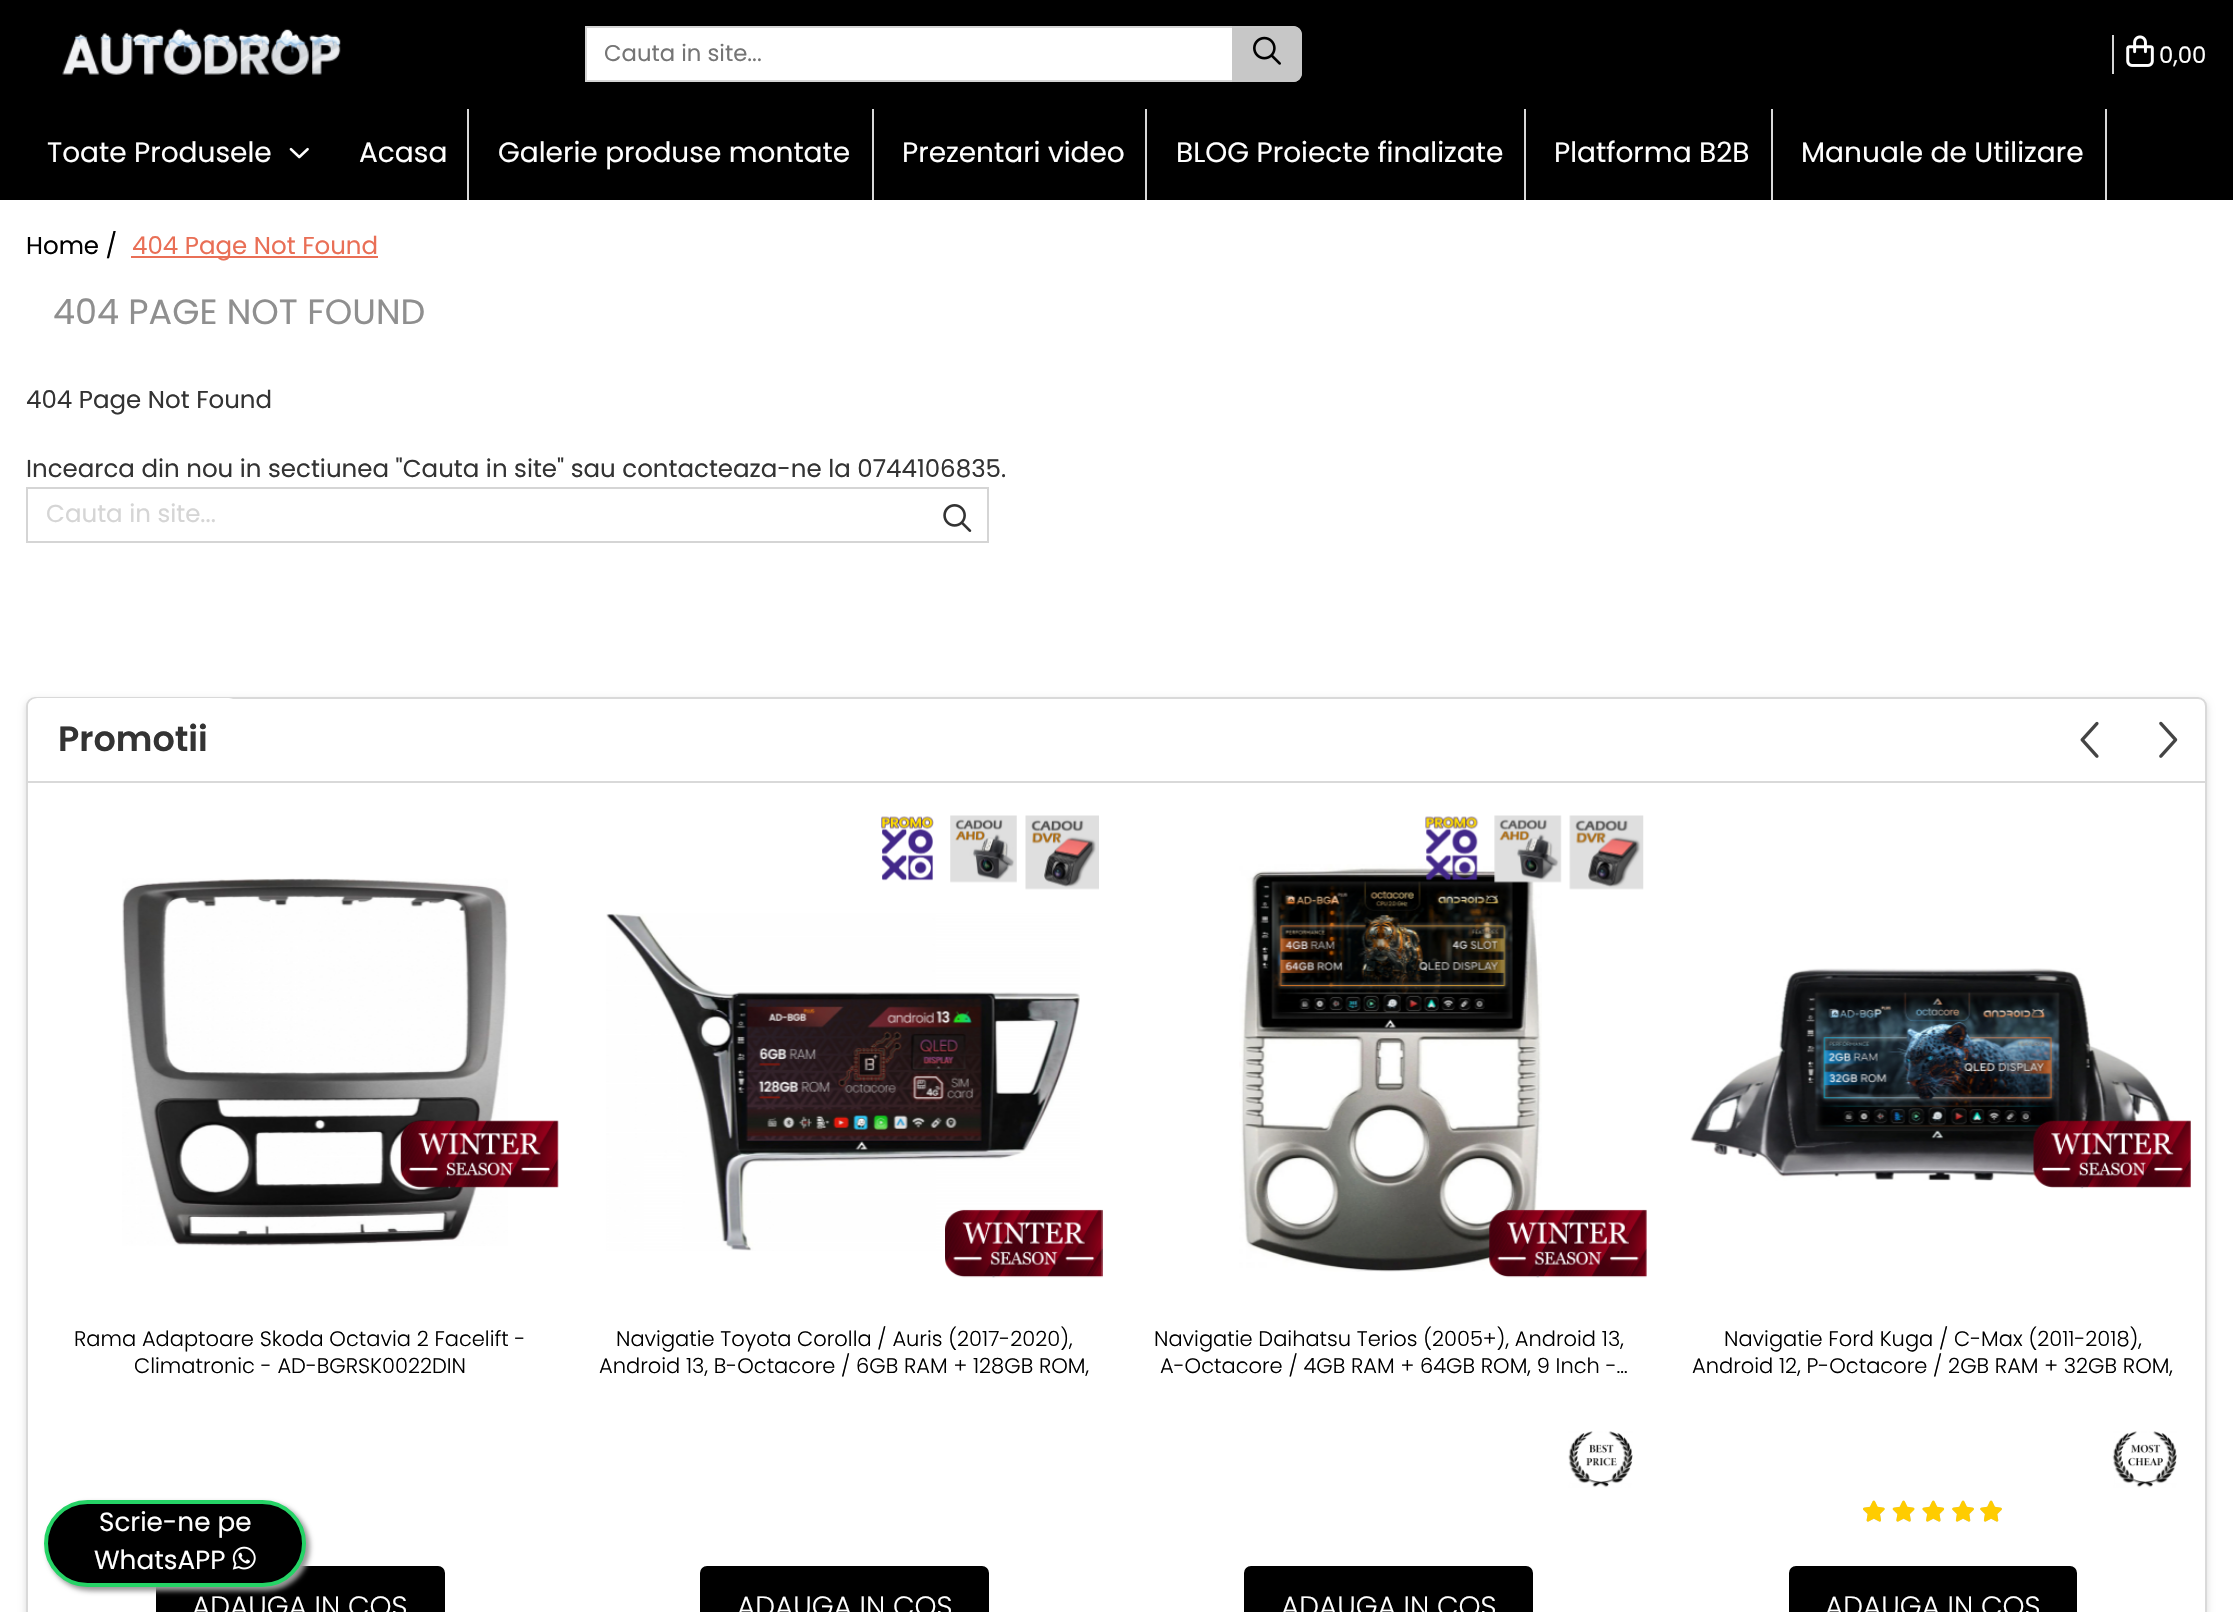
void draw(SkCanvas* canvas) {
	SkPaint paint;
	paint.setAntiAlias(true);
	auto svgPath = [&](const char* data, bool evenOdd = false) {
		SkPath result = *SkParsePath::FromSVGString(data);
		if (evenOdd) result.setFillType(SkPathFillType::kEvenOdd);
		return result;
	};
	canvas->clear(0xffffffff);
	paint.setColor(0xff000000);
	canvas->drawRect(SkRect::MakeXYWH(0, 0, 2233, 200), paint);
	canvas->drawImageRect(SkImages::DeferredFromEncodedData(SkData::MakeFromFileName("img1.png")), SkRect::MakeXYWH(62, 28, 279, 47), SkSamplingOptions());
	paint.setColor(0xffffffff);
	canvas->drawPath(svgPath("M586 27H1293C1297.5 27 1301 30.5 1301 35V73C1301 77.5 1297.5 81 1293 81H586Z"), paint);
	paint.setStroke(true);
	paint.setStrokeWidth(2);
	paint.setColor(0xffd5d5d5);
	canvas->drawPath(svgPath("M586 27H1293C1297.5 27 1301 30.5 1301 35V73C1301 77.5 1297.5 81 1293 81H586Z"), paint);
	SkFont f1(fontMgr->matchFamilyStyle("Poppins", SkFontStyle::Normal()), 22.75);
	f1.setSubpixel(true);
	paint.setStroke(false);
	paint.setColor(0xff757575);
	canvas->drawString("Cauta in site...", 604, 61, f1, paint);
	paint.setColor(0xffc7c7c7);
	canvas->drawPath(svgPath("M1232 26H1293C1298 26 1302 30 1302 35V73C1302 78 1298 82 1293 82H1232Z"), paint);
	canvas->drawImageRect(SkImages::DeferredFromEncodedData(SkData::MakeFromFileName("img2.png")), SkRect::MakeXYWH(1253, 36, 28, 29), SkSamplingOptions());
	paint.setColor(0xffd5d5d5);
	canvas->drawRect(SkRect::MakeXYWH(2112, 35, 2, 39), paint);
	canvas->drawImageRect(SkImages::DeferredFromEncodedData(SkData::MakeFromFileName("img3.png")), SkRect::MakeXYWH(2126, 35, 28, 32), SkSamplingOptions());
	paint.setColor(0xffffffff);
	canvas->drawString("0,00", 2159, 63, f1, paint);
	SkFont f2(fontMgr->matchFamilyStyle("Poppins", SkFontStyle::Normal()), 28);
	f2.setSubpixel(true);
	canvas->drawString("Toate Produsele", 47, 162, f2, paint);
	canvas->drawImageRect(SkImages::DeferredFromEncodedData(SkData::MakeFromFileName("img4.png")), SkRect::MakeXYWH(289, 147, 20, 12), SkSamplingOptions());
	paint.setColor(0xffd9d9d9);
	canvas->drawRect(SkRect::MakeXYWH(467, 109, 2, 91), paint);
	paint.setColor(0xffffffff);
	canvas->drawString("Acasa", 359, 162, f2, paint);
	paint.setColor(0xffd9d9d9);
	canvas->drawRect(SkRect::MakeXYWH(872, 109, 2, 91), paint);
	paint.setColor(0xffffffff);
	canvas->drawString("Galerie produse montate", 498, 162, f2, paint);
	paint.setColor(0xffd9d9d9);
	canvas->drawRect(SkRect::MakeXYWH(1145, 109, 2, 91), paint);
	paint.setColor(0xffffffff);
	canvas->drawString("Prezentari video", 902, 162, f2, paint);
	paint.setColor(0xffd9d9d9);
	canvas->drawRect(SkRect::MakeXYWH(1524, 109, 2, 91), paint);
	paint.setColor(0xffffffff);
	canvas->drawString("BLOG Proiecte finalizate", 1176, 162, f2, paint);
	paint.setColor(0xffd9d9d9);
	canvas->drawRect(SkRect::MakeXYWH(1771, 109, 2, 91), paint);
	paint.setColor(0xffffffff);
	canvas->drawString("Platforma B2B", 1554, 162, f2, paint);
	paint.setColor(0xffd9d9d9);
	canvas->drawRect(SkRect::MakeXYWH(2105, 109, 2, 91), paint);
	paint.setColor(0xffffffff);
	canvas->drawString("Manuale de Utilizare", 1801, 162, f2, paint);
	SkFont f3(fontMgr->matchFamilyStyle("Poppins", SkFontStyle::Normal()), 24.5);
	f3.setSubpixel(true);
	paint.setColor(0xff000000);
	canvas->drawString("Home /", 26, 254, f3, paint);
	paint.setColor(0xffe96f56);
	canvas->drawRect(SkRect::MakeXYWH(131, 256, 247, 2), paint);
	canvas->drawString("404 Page Not Found", 132, 254, f3, paint);
	SkFont f4(fontMgr->matchFamilyStyle("Poppins", SkFontStyle::Normal()), 35);
	f4.setSubpixel(true);
	paint.setColor(0xff8f8f8f);
	canvas->drawString("404 PAGE NOT FOUND", 53, 324, f4, paint);
	paint.setColor(0xff333333);
	canvas->drawString("404 Page Not Found", 26, 408, f3, paint);
	canvas->drawString("Incearca din nou in sectiunea \"Cauta in site\" sau contacteaza-ne la 0744106835.", 26, 477, f3, paint);
	paint.setStroke(true);
	paint.setColor(0xffd5d5d5);
	canvas->drawRect(SkRect::MakeXYWH(27, 488, 961, 54), paint);
	paint.setStroke(false);
	canvas->drawString("Cauta in site...", 46, 522, f3, paint);
	canvas->drawImageRect(SkImages::DeferredFromEncodedData(SkData::MakeFromFileName("img5.png")), SkRect::MakeXYWH(943, 504, 29, 28), SkSamplingOptions());
	canvas->save();
	canvas->clipPath(svgPath("M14 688H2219V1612H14ZM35 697H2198C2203 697 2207 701 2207 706V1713C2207 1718 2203 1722 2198 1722H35C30 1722 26 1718 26 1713V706C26 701 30 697 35 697Z", true), true);
	paint.setColor(0xffd9d9d9);
	paint.setMaskFilter(SkMaskFilter::MakeBlur(kNormal_SkBlurStyle, 3.5));
	canvas->drawRoundRect(SkRect::MakeXYWH(26, 700, 2181, 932), 9, 9, paint);
	paint.setMaskFilter(nullptr);
	canvas->restore();
	paint.setStroke(true);
	canvas->drawRoundRect(SkRect::MakeXYWH(27, 698, 2179, 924), 8, 8, paint);
	paint.setStroke(false);
	canvas->drawRect(SkRect::MakeXYWH(28, 781, 2177, 2), paint);
	paint.setColor(0xffffffff);
	canvas->drawRoundRect(SkRect::MakeXYWH(28, 698, 210, 83), 9, 9, paint);
	SkFont f5(fontMgr->matchFamilyStyle("Poppins", SkFontStyle(600, SkFontStyle::kNormal_Width, SkFontStyle::kUpright_Slant)), 35);
	f5.setSubpixel(true);
	paint.setColor(0xff333333);
	canvas->drawString("Promotii", 58, 751, f5, paint);
	canvas->drawImageRect(SkImages::DeferredFromEncodedData(SkData::MakeFromFileName("img6.png")), SkRect::MakeXYWH(2080, 721, 19, 37), SkSamplingOptions());
	canvas->drawImageRect(SkImages::DeferredFromEncodedData(SkData::MakeFromFileName("img7.png")), SkRect::MakeXYWH(2159, 721, 19, 37), SkSamplingOptions());
	canvas->drawImageRect(SkImages::DeferredFromEncodedData(SkData::MakeFromFileName("img8.png")), SkRect::MakeXYWH(122, 878, 386, 368), SkSamplingOptions());
	canvas->drawImageRect(SkImages::DeferredFromEncodedData(SkData::MakeFromFileName("img9.png")), SkRect::MakeXYWH(400, 1120, 159, 69), SkSamplingOptions());
	SkFont f6(fontMgr->matchFamilyStyle("Poppins", SkFontStyle(300, SkFontStyle::kNormal_Width, SkFontStyle::kUpright_Slant)), 21);
	f6.setSubpixel(true);
	paint.setColor(0xff000000);
	canvas->drawString("Rama Adaptoare Skoda Octavia 2 Facelift -", 74, 1346, f6, paint);
	canvas->drawString("Climatronic - AD-BGRSK0022DIN", 134, 1373, f6, paint);
	canvas->drawRoundRect(SkRect::MakeXYWH(157, 1567, 287, 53), 6, 6, paint);
	paint.setStroke(true);
	canvas->drawRoundRect(SkRect::MakeXYWH(157, 1567, 287, 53), 6, 6, paint);
	SkFont f7(fontMgr->matchFamilyStyle("Poppins", SkFontStyle(300, SkFontStyle::kNormal_Width, SkFontStyle::kUpright_Slant)), 28);
	f7.setSubpixel(true);
	paint.setStroke(false);
	paint.setColor(0xffffffff);
	canvas->drawString("ADAUGA IN COS", 192, 1616, f7, paint);
	canvas->drawImageRect(SkImages::DeferredFromEncodedData(SkData::MakeFromFileName("img10.png")), SkRect::MakeXYWH(881, 816, 53, 65), SkSamplingOptions());
	canvas->drawImageRect(SkImages::DeferredFromEncodedData(SkData::MakeFromFileName("img11.png")), SkRect::MakeXYWH(950, 815, 67, 68), SkSamplingOptions());
	canvas->drawImageRect(SkImages::DeferredFromEncodedData(SkData::MakeFromFileName("img12.png")), SkRect::MakeXYWH(1025, 815, 74, 75), SkSamplingOptions());
	canvas->drawImageRect(SkImages::DeferredFromEncodedData(SkData::MakeFromFileName("img14.png")), SkRect::MakeXYWH(606, 913, 474, 338), SkSamplingOptions());
	canvas->drawImageRect(SkImages::DeferredFromEncodedData(SkData::MakeFromFileName("img13.png")), SkRect::MakeXYWH(945, 1209, 158, 69), SkSamplingOptions());
	paint.setColor(0xff000000);
	canvas->drawString("Navigatie Toyota Corolla / Auris (2017-2020),", 616, 1346, f6, paint);
	canvas->drawString("Android 13, B-Octacore / 6GB RAM + 128GB ROM,", 599, 1373, f6, paint);
	canvas->drawRoundRect(SkRect::MakeXYWH(701, 1567, 287, 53), 6, 6, paint);
	paint.setStroke(true);
	canvas->drawRoundRect(SkRect::MakeXYWH(701, 1567, 287, 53), 6, 6, paint);
	paint.setStroke(false);
	paint.setColor(0xffffffff);
	canvas->drawString("ADAUGA IN COS", 737, 1616, f7, paint);
	canvas->drawImageRect(SkImages::DeferredFromEncodedData(SkData::MakeFromFileName("img19.png")), SkRect::MakeXYWH(1239, 864, 303, 408), SkSamplingOptions());
	canvas->drawImageRect(SkImages::DeferredFromEncodedData(SkData::MakeFromFileName("img15.png")), SkRect::MakeXYWH(1425, 816, 54, 65), SkSamplingOptions());
	canvas->drawImageRect(SkImages::DeferredFromEncodedData(SkData::MakeFromFileName("img16.png")), SkRect::MakeXYWH(1494, 815, 68, 68), SkSamplingOptions());
	canvas->drawImageRect(SkImages::DeferredFromEncodedData(SkData::MakeFromFileName("img17.png")), SkRect::MakeXYWH(1569, 815, 75, 75), SkSamplingOptions());
	canvas->drawImageRect(SkImages::DeferredFromEncodedData(SkData::MakeFromFileName("img18.png")), SkRect::MakeXYWH(1489, 1209, 158, 69), SkSamplingOptions());
	canvas->drawImageRect(SkImages::DeferredFromEncodedData(SkData::MakeFromFileName("img20.png")), SkRect::MakeXYWH(1568, 1431, 65, 57), SkSamplingOptions());
	paint.setColor(0xff000000);
	canvas->drawString("Navigatie Daihatsu Terios (2005+), Android 13,", 1154, 1346, f6, paint);
	canvas->drawString("A-Octacore / 4GB RAM + 64GB ROM, 9 Inch -…", 1160, 1373, f6, paint);
	canvas->drawRoundRect(SkRect::MakeXYWH(1245, 1567, 287, 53), 6, 6, paint);
	paint.setStroke(true);
	canvas->drawRoundRect(SkRect::MakeXYWH(1245, 1567, 287, 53), 6, 6, paint);
	paint.setStroke(false);
	paint.setColor(0xffffffff);
	canvas->drawString("ADAUGA IN COS", 1281, 1616, f7, paint);
	canvas->drawImageRect(SkImages::DeferredFromEncodedData(SkData::MakeFromFileName("img21.png")), SkRect::MakeXYWH(1690, 968, 486, 213), SkSamplingOptions());
	canvas->drawImageRect(SkImages::DeferredFromEncodedData(SkData::MakeFromFileName("img22.png")), SkRect::MakeXYWH(2033, 1120, 158, 69), SkSamplingOptions());
	canvas->drawImageRect(SkImages::DeferredFromEncodedData(SkData::MakeFromFileName("img23.png")), SkRect::MakeXYWH(2112, 1431, 65, 57), SkSamplingOptions());
	paint.setColor(0xff000000);
	canvas->drawString("Navigatie Ford Kuga / C-Max (2011-2018),", 1724, 1346, f6, paint);
	canvas->drawString("Android 12, P-Octacore / 2GB RAM + 32GB ROM,", 1692, 1373, f6, paint);
	canvas->drawImageRect(SkImages::DeferredFromEncodedData(SkData::MakeFromFileName("img24.png")), SkRect::MakeXYWH(1863, 1500, 22, 22), SkSamplingOptions());
	canvas->drawImageRect(SkImages::DeferredFromEncodedData(SkData::MakeFromFileName("img25.png")), SkRect::MakeXYWH(1863, 1500, 22, 22), SkSamplingOptions());
	canvas->drawImageRect(SkImages::DeferredFromEncodedData(SkData::MakeFromFileName("img29.png")), SkRect::MakeXYWH(1892, 1500, 23, 22), SkSamplingOptions());
	canvas->drawImageRect(SkImages::DeferredFromEncodedData(SkData::MakeFromFileName("img26.png")), SkRect::MakeXYWH(1892, 1500, 23, 22), SkSamplingOptions());
	canvas->drawImageRect(SkImages::DeferredFromEncodedData(SkData::MakeFromFileName("img30.png")), SkRect::MakeXYWH(1922, 1500, 22, 22), SkSamplingOptions());
	canvas->drawImageRect(SkImages::DeferredFromEncodedData(SkData::MakeFromFileName("img27.png")), SkRect::MakeXYWH(1922, 1500, 23, 22), SkSamplingOptions());
	canvas->drawImageRect(SkImages::DeferredFromEncodedData(SkData::MakeFromFileName("img31.png")), SkRect::MakeXYWH(1952, 1500, 22, 22), SkSamplingOptions());
	canvas->drawImageRect(SkImages::DeferredFromEncodedData(SkData::MakeFromFileName("img28.png")), SkRect::MakeXYWH(1952, 1500, 22, 22), SkSamplingOptions());
	canvas->drawImageRect(SkImages::DeferredFromEncodedData(SkData::MakeFromFileName("img31.png")), SkRect::MakeXYWH(1980, 1500, 22, 22), SkSamplingOptions());
	canvas->drawImageRect(SkImages::DeferredFromEncodedData(SkData::MakeFromFileName("img28.png")), SkRect::MakeXYWH(1980, 1500, 22, 22), SkSamplingOptions());
	canvas->drawRoundRect(SkRect::MakeXYWH(1790, 1567, 286, 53), 6, 6, paint);
	paint.setStroke(true);
	canvas->drawRoundRect(SkRect::MakeXYWH(1790, 1567, 286, 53), 6, 6, paint);
	paint.setStroke(false);
	paint.setColor(0xffffffff);
	canvas->drawString("ADAUGA IN COS", 1825, 1616, f7, paint);
	paint.setColor(0xff999999);
	paint.setMaskFilter(SkMaskFilter::MakeBlur(kNormal_SkBlurStyle, 2.5));
	canvas->drawRoundRect(SkRect::MakeXYWH(47, 1503, 263, 88), 44, 44, paint);
	paint.setMaskFilter(nullptr);
	paint.setColor(0xff000000);
	canvas->drawRoundRect(SkRect::MakeXYWH(46, 1502, 258, 83), 41.5, 41.5, paint);
	paint.setStroke(true);
	paint.setStrokeWidth(4);
	paint.setColor(0xff25d366);
	canvas->drawRoundRect(SkRect::MakeXYWH(46, 1502, 258, 83), 41.5, 41.5, paint);
	SkFont f8(fontMgr->matchFamilyStyle("Poppins", SkFontStyle::Normal()), 26.25);
	f8.setSubpixel(true);
	paint.setStroke(false);
	paint.setColor(0xffffffff);
	canvas->drawString("Scrie-ne pe", 99, 1531, f8, paint);
	canvas->drawString("WhatsAPP", 94, 1569, f8, paint);
	canvas->drawImageRect(SkImages::DeferredFromEncodedData(SkData::MakeFromFileName("img32.png")), SkRect::MakeXYWH(232, 1546, 24, 24), SkSamplingOptions());
}
